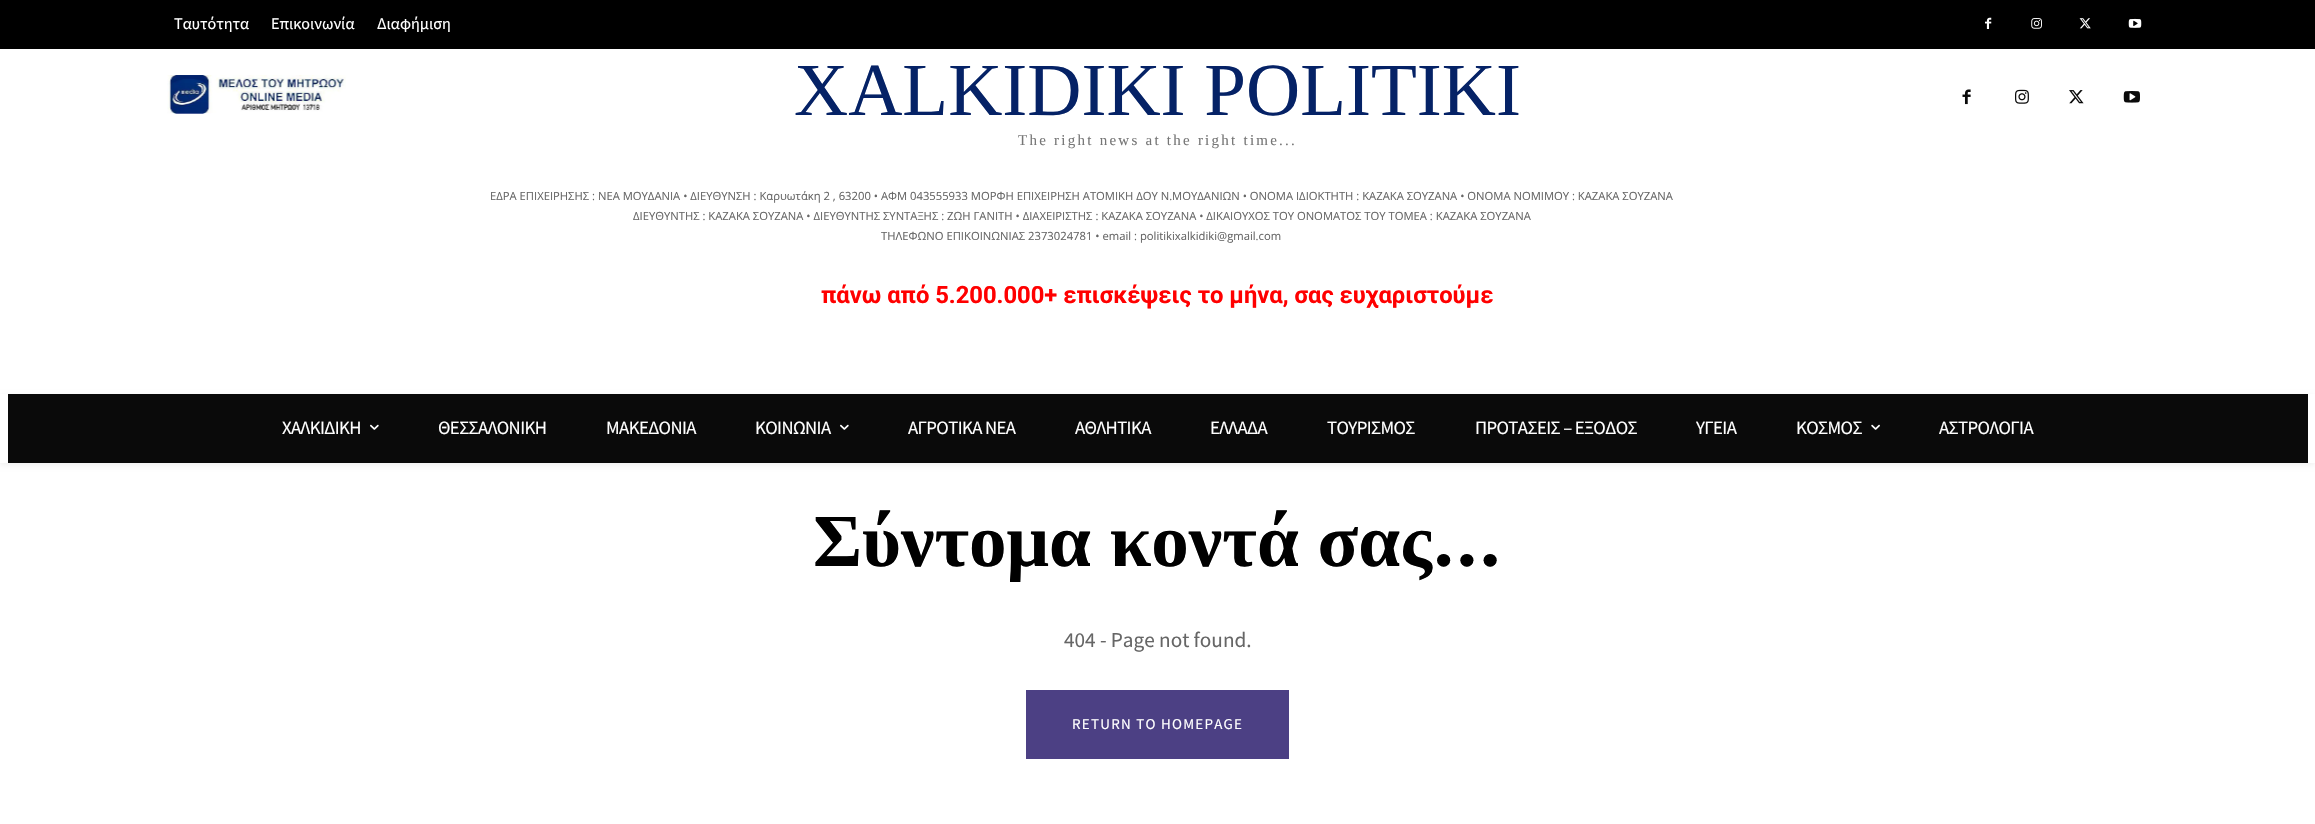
void draw(SkCanvas* canvas) {
	SkPaint paint;
	paint.setAntiAlias(true);
	auto spacedText = [&](const char* s, float x, float y, const SkFont& font, const SkPaint& ink, float letter, float word) {
		std::vector<SkGlyphID> glyphs(font.countText(s, strlen(s), SkTextEncoding::kUTF8));
		std::vector<float> xs(glyphs.size());
		font.textToGlyphs(s, strlen(s), SkTextEncoding::kUTF8, glyphs);
		font.getXPos(glyphs, xs, x);
		float extra = 0;
		for (size_t i = 0; i < glyphs.size(); i++) {
			xs[i] += extra;
			extra += letter + word * (glyphs[i] == font.unicharToGlyph(' '));
		}
		canvas->drawTextBlob(SkTextBlob::MakeFromPosHGlyphs(glyphs, xs, y, font), 0, 0, ink);
	};
	auto svgPath = [&](const char* data, bool evenOdd = false) {
		SkPath result = *SkParsePath::FromSVGString(data);
		if (evenOdd) result.setFillType(SkPathFillType::kEvenOdd);
		return result;
	};
	canvas->clear(0xffffffff);
	paint.setColor(0xff000000);
	canvas->drawRect(SkRect::MakeXYWH(0, 0, 2315, 49), paint);
	SkFont f1(fontMgr->matchFamilyStyle("Source Sans Pro", SkFontStyle::Normal()), 16.25);
	f1.setSubpixel(true);
	paint.setColor(0xffffffff);
	canvas->drawString("Ταυτότητα", 174, 29, f1, paint);
	canvas->drawString("Επικοινωνία", 271, 29, f1, paint);
	canvas->drawString("Διαφήμιση", 377, 29, f1, paint);
	canvas->drawImageRect(SkImages::DeferredFromEncodedData(SkData::MakeFromFileName("img1.png")), SkRect::MakeXYWH(1985, 17, 7, 12), SkSamplingOptions());
	canvas->drawImageRect(SkImages::DeferredFromEncodedData(SkData::MakeFromFileName("img2.png")), SkRect::MakeXYWH(2031, 18, 11, 11), SkSamplingOptions());
	canvas->drawImageRect(SkImages::DeferredFromEncodedData(SkData::MakeFromFileName("img3.png")), SkRect::MakeXYWH(2079, 18, 12, 11), SkSamplingOptions());
	canvas->drawImageRect(SkImages::DeferredFromEncodedData(SkData::MakeFromFileName("img4.png")), SkRect::MakeXYWH(2128, 18, 14, 10), SkSamplingOptions());
	canvas->drawImageRect(SkImages::DeferredFromEncodedData(SkData::MakeFromFileName("img5.png")), SkRect::MakeXYWH(167, 75, 179, 39), SkSamplingOptions());
	SkFont f2(fontMgr->matchFamilyStyle("Liberation Serif", SkFontStyle::Normal()), 75);
	f2.setSubpixel(true);
	paint.setColor(0xff052266);
	canvas->drawString("XALKIDIKI POLITIKI", 794, 115, f2, paint);
	SkFont f3(fontMgr->matchFamilyStyle("Liberation Serif", SkFontStyle::Normal()), 15);
	f3.setSubpixel(true);
	paint.setColor(0xff767676);
	spacedText("The right news at the right time...", 1018, 145, f3, paint, 2.25, 0);
	canvas->drawImageRect(SkImages::DeferredFromEncodedData(SkData::MakeFromFileName("img6.png")), SkRect::MakeXYWH(1962, 89, 9, 16), SkSamplingOptions());
	canvas->drawImageRect(SkImages::DeferredFromEncodedData(SkData::MakeFromFileName("img7.png")), SkRect::MakeXYWH(2015, 89, 14, 15), SkSamplingOptions());
	canvas->drawImageRect(SkImages::DeferredFromEncodedData(SkData::MakeFromFileName("img8.png")), SkRect::MakeXYWH(2069, 90, 15, 14), SkSamplingOptions());
	canvas->drawImageRect(SkImages::DeferredFromEncodedData(SkData::MakeFromFileName("img9.png")), SkRect::MakeXYWH(2123, 91, 17, 12), SkSamplingOptions());
	SkFont f4(fontMgr->matchFamilyStyle("Open Sans", SkFontStyle::Normal()), 11.25);
	f4.setSubpixel(true);
	paint.setColor(0xff666666);
	canvas->drawString("ΕΔΡΑ ΕΠΙΧΕΙΡΗΣΗΣ : ΝΕΑ ΜΟΥΔΑΝΙΑ • ΔΙΕΥΘΥΝΣΗ : Καρυωτάκη 2 , 63200 • ΑΦΜ 043555933 ΜΟΡΦΗ ΕΠΙΧΕΙΡΗΣΗ ΑΤΟΜΙΚΗ ΔΟΥ Ν.ΜΟΥΔΑΝΙΩΝ • ONOMA ΙΔΙΟΚΤΗΤΗ : ΚΑΖΑΚΑ ΣΟΥΖΑΝΑ • ΟΝΟΜΑ ΝΟΜΙΜΟΥ : ΚΑΖΑΚΑ ΣΟΥΖΑΝΑ", 490, 200, f4, paint);
	canvas->drawString("ΔΙΕΥΘΥΝΤΗΣ : ΚΑΖΑΚΑ ΣΟΥΖΑΝΑ • ΔΙΕΥΘΥΝΤΗΣ ΣΥΝΤΑΞΗΣ : ΖΩΗ ΓΑΝΙΤΗ • ΔΙΑΧΕΙΡΙΣΤΗΣ : ΚΑΖΑΚΑ ΣΟΥΖΑΝΑ • ΔΙΚΑΙΟΥΧΟΣ ΤΟΥ ΟΝΟΜΑΤΟΣ ΤΟΥ ΤΟΜΕΑ : ΚΑΖΑΚΑ ΣΟΥΖΑΝΑ", 633, 220, f4, paint);
	canvas->drawString("ΤΗΛΕΦΩΝΟ ΕΠΙΚΟΙΝΩΝΙΑΣ 2373024781 • email : politikixalkidiki@gmail.com", 881, 240, f4, paint);
	SkFont f5(fontMgr->matchFamilyStyle("Roboto", SkFontStyle::Bold()), 23.75);
	f5.setSubpixel(true);
	paint.setColor(0xffff0000);
	canvas->drawString("πάνω από 5.200.000+ επισκέψεις το μήνα, σας ευχαριστούμε", 821, 303, f5, paint);
	paint.setColor(0xff0a0a0a);
	canvas->drawRect(SkRect::MakeXYWH(8, 394, 2300, 69), paint);
	canvas->save();
	canvas->clipPath(svgPath("M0 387H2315V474H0ZM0 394H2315V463H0Z", true), true);
	paint.setColor(0x0f000000);
	paint.setMaskFilter(SkMaskFilter::MakeBlur(kNormal_SkBlurStyle, 2.5));
	canvas->drawRect(SkRect::MakeXYWH(0, 396, 2315, 69), paint);
	paint.setMaskFilter(nullptr);
	canvas->restore();
	SkFont f6(fontMgr->matchFamilyStyle("Source Sans Pro", SkFontStyle::Normal()), 18.75);
	f6.setSubpixel(true);
	paint.setColor(0xffffffff);
	spacedText("ΧΑΛΚΙΔΙΚΗ", 282, 434, f6, paint, -0.6, 0);
	canvas->drawImageRect(SkImages::DeferredFromEncodedData(SkData::MakeFromFileName("img10.png")), SkRect::MakeXYWH(370, 424, 9, 6), SkSamplingOptions());
	spacedText("ΘΕΣΣΑΛΟΝΙΚΗ", 438, 434, f6, paint, -0.6, 0);
	spacedText("ΜΑΚΕΔΟΝΙΑ", 606, 434, f6, paint, -0.6, 0);
	spacedText("ΚΟΙΝΩΝΙΑ", 755, 434, f6, paint, -0.6, 0);
	canvas->drawImageRect(SkImages::DeferredFromEncodedData(SkData::MakeFromFileName("img10.png")), SkRect::MakeXYWH(840, 424, 9, 6), SkSamplingOptions());
	spacedText("ΑΓΡΟΤΙΚΑ ΝΕΑ", 908, 434, f6, paint, -0.6, 0);
	spacedText("ΑΘΛΗΤΙΚΑ", 1075, 434, f6, paint, -0.6, 0);
	spacedText("ΕΛΛΑΔΑ", 1210, 434, f6, paint, -0.6, 0);
	spacedText("ΤΟΥΡΙΣΜΟΣ", 1327, 434, f6, paint, -0.6, 0);
	spacedText("ΠΡΟΤΑΣΕΙΣ – ΕΞΟΔΟΣ", 1475, 434, f6, paint, -0.6, 0);
	spacedText("ΥΓΕΙΑ", 1696, 434, f6, paint, -0.6, 0);
	spacedText("ΚΟΣΜΟΣ", 1796, 434, f6, paint, -0.6, 0);
	canvas->drawImageRect(SkImages::DeferredFromEncodedData(SkData::MakeFromFileName("img11.png")), SkRect::MakeXYWH(1871, 424, 9, 6), SkSamplingOptions());
	spacedText("ΑΣΤΡΟΛΟΓΙΑ", 1939, 434, f6, paint, -0.6, 0);
	SkFont f7(fontMgr->matchFamilyStyle("Liberation Serif", SkFontStyle::Bold()), 75);
	f7.setSubpixel(true);
	paint.setColor(0xff000000);
	canvas->drawString("Σύντομα κοντά σας", 813, 566, f7, paint);
	SkFont f8(fontMgr->matchFamilyStyle("Gelasio", SkFontStyle(600, SkFontStyle::kNormal_Width, SkFontStyle::kUpright_Slant)), 75);
	f8.setSubpixel(true);
	canvas->drawString("...", 1432, 566, f8, paint);
	SkFont f9(fontMgr->matchFamilyStyle("Source Sans Pro", SkFontStyle::Normal()), 21.25);
	f9.setSubpixel(true);
	paint.setColor(0xff666666);
	canvas->drawString("404 - Page not found.", 1064, 647, f9, paint);
	paint.setColor(0xff4c4084);
	canvas->drawRect(SkRect::MakeXYWH(1026, 690, 263, 69), paint);
	SkFont f10(fontMgr->matchFamilyStyle("Source Sans Pro", SkFontStyle::Normal()), 15);
	f10.setSubpixel(true);
	paint.setColor(0xffffffff);
	spacedText("RETURN TO HOMEPAGE", 1072, 729, f10, paint, 1.25, 0);
}
